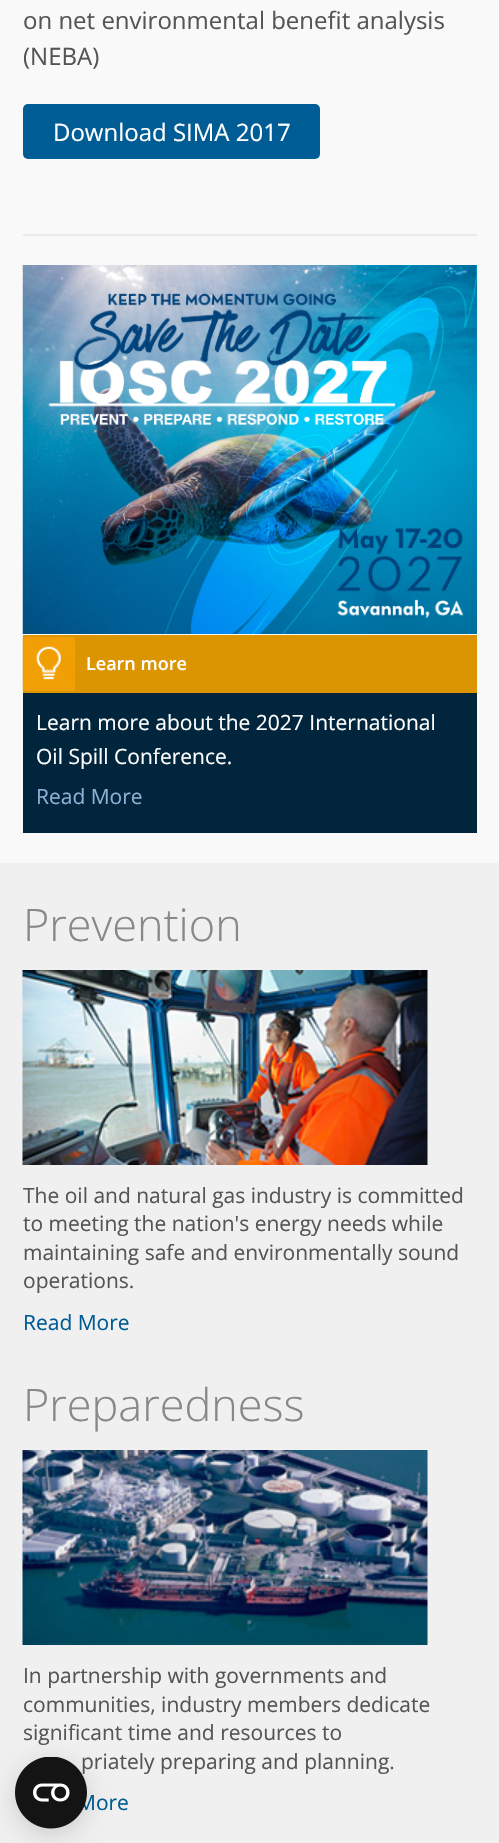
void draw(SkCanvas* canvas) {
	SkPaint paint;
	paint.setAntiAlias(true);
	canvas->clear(0xfff9f9f9);
	SkFont f1(fontMgr->matchFamilyStyle("Open Sans", SkFontStyle::Normal()), 24);
	f1.setSubpixel(true);
	paint.setColor(0xff555555);
	canvas->drawString("on net environmental benefit analysis", 23, 29, f1, paint);
	canvas->drawString("(NEBA)", 23, 65, f1, paint);
	paint.setColor(0xff005c94);
	canvas->drawRoundRect(SkRect::MakeXYWH(23, 104, 297, 55), 5, 5, paint);
	paint.setColor(0xffffffff);
	canvas->drawString("Download SIMA 2017", 53, 141, f1, paint);
	paint.setColor(0xffe9e9e9);
	canvas->drawRect(SkRect::MakeXYWH(23, 234, 454, 2), paint);
	canvas->drawImageRect(SkImages::DeferredFromEncodedData(SkData::MakeFromFileName("img1.png")), SkRect::MakeXYWH(22, 265, 455, 369), SkSamplingOptions());
	paint.setColor(0xffdb9500);
	canvas->drawRect(SkRect::MakeXYWH(23, 635, 454, 58), paint);
	canvas->drawImageRect(SkImages::DeferredFromEncodedData(SkData::MakeFromFileName("img2.png")), SkRect::MakeXYWH(22, 637, 53, 54), SkSamplingOptions());
	SkFont f2(fontMgr->matchFamilyStyle("Open Sans", SkFontStyle(600, SkFontStyle::kNormal_Width, SkFontStyle::kUpright_Slant)), 18);
	f2.setSubpixel(true);
	paint.setColor(0xffffffff);
	canvas->drawString("Learn more", 86, 670, f2, paint);
	paint.setColor(0xff00253c);
	canvas->drawRect(SkRect::MakeXYWH(23, 693, 454, 140), paint);
	SkFont f3(fontMgr->matchFamilyStyle("Open Sans", SkFontStyle::Normal()), 21);
	f3.setSubpixel(true);
	paint.setColor(0xffffffff);
	canvas->drawString("Learn more about the 2027 International", 36, 730, f3, paint);
	canvas->drawString("Oil Spill Conference.", 36, 764, f3, paint);
	paint.setColor(0xff8db0d3);
	canvas->drawString("Read More", 36, 804, f3, paint);
	paint.setColor(0xfff0f0f0);
	canvas->drawRect(SkRect::MakeXYWH(0, 863, 499, 980), paint);
	SkFont f4(fontMgr->matchFamilyStyle("Open Sans", SkFontStyle(300, SkFontStyle::kNormal_Width, SkFontStyle::kUpright_Slant)), 45);
	f4.setSubpixel(true);
	paint.setColor(0xff888888);
	canvas->drawString("Prevention", 23, 941, f4, paint);
	canvas->drawImageRect(SkImages::DeferredFromEncodedData(SkData::MakeFromFileName("img3.png")), SkRect::MakeXYWH(22, 970, 406, 195), SkSamplingOptions());
	paint.setColor(0xff555555);
	canvas->drawString("The oil and natural gas industry is committed", 23, 1203, f3, paint);
	canvas->drawString("to meeting the nation's energy needs while", 23, 1231, f3, paint);
	canvas->drawString("maintaining safe and environmentally sound", 23, 1260, f3, paint);
	canvas->drawString("operations.", 23, 1288, f3, paint);
	paint.setColor(0xff005c94);
	canvas->drawString("Read More", 23, 1330, f3, paint);
	paint.setColor(0xff888888);
	canvas->drawString("Preparedness", 23, 1421, f4, paint);
	canvas->drawImageRect(SkImages::DeferredFromEncodedData(SkData::MakeFromFileName("img4.png")), SkRect::MakeXYWH(22, 1450, 406, 195), SkSamplingOptions());
	paint.setColor(0xff555555);
	canvas->drawString("In partnership with governments and", 23, 1683, f3, paint);
	canvas->drawString("communities, industry members dedicate", 23, 1712, f3, paint);
	canvas->drawString("significant time and resources to", 23, 1740, f3, paint);
	canvas->drawString("priately preparing and planning.", 81, 1769, f3, paint);
	paint.setColor(0xff005c94);
	canvas->drawString("More", 77, 1810, f3, paint);
	paint.setColor(0x26000000);
	paint.setMaskFilter(SkMaskFilter::MakeBlur(kNormal_SkBlurStyle, 12));
	canvas->drawRoundRect(SkRect::MakeXYWH(15, 1763, 72, 72), 36, 36, paint);
	paint.setMaskFilter(nullptr);
	canvas->drawImageRect(SkImages::DeferredFromEncodedData(SkData::MakeFromFileName("img5.png")), SkRect::MakeXYWH(15, 1757, 72, 72), SkSamplingOptions());
}
